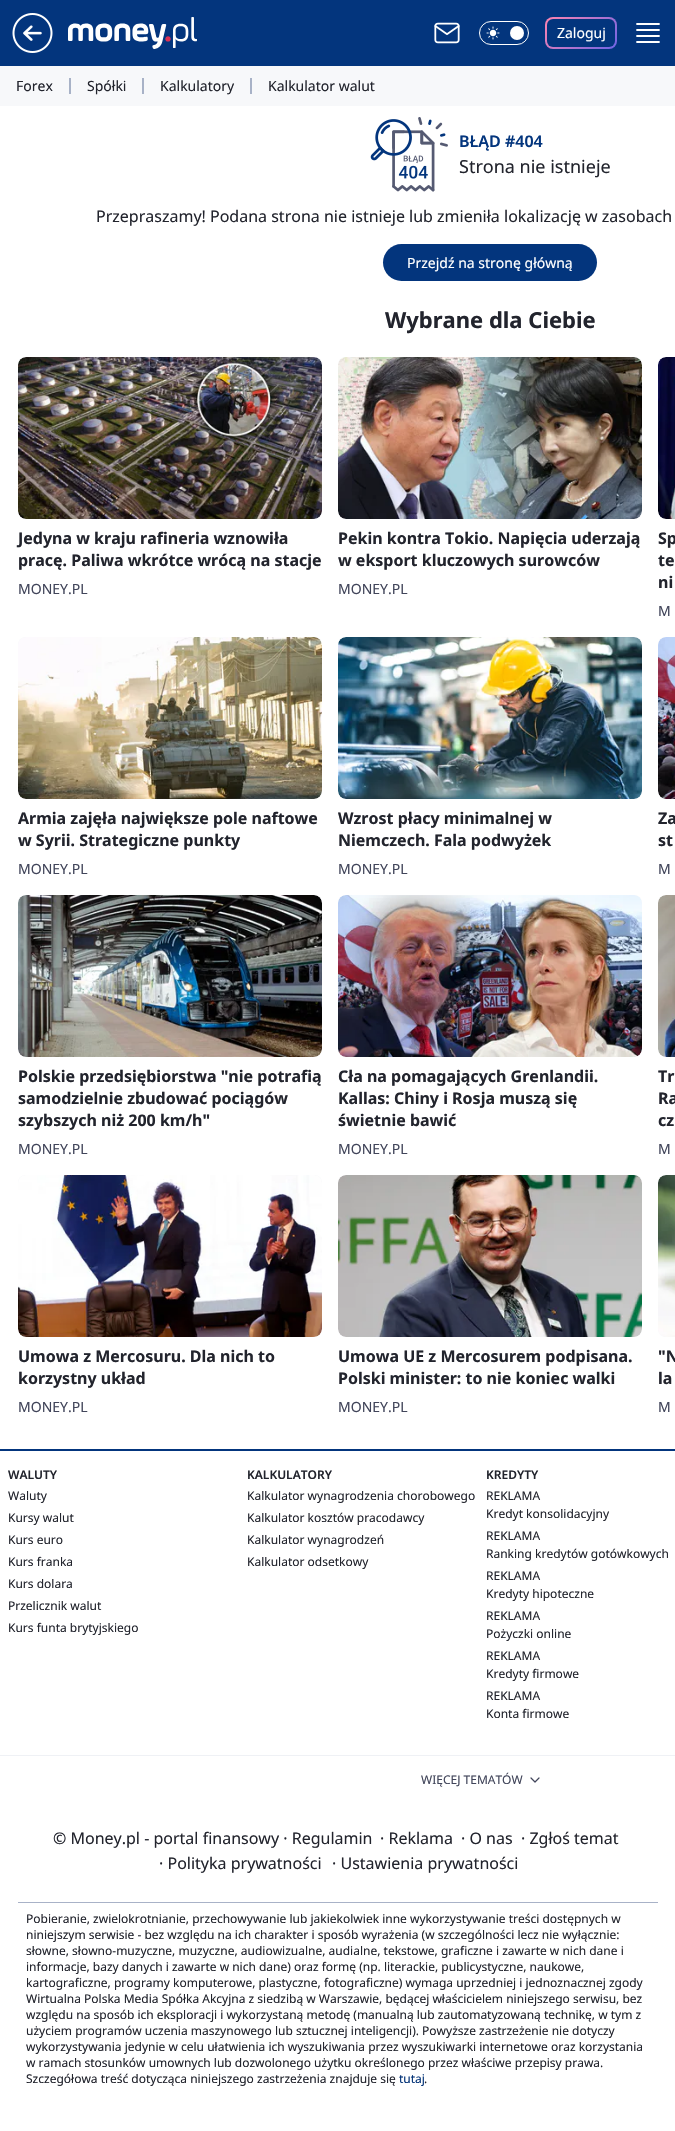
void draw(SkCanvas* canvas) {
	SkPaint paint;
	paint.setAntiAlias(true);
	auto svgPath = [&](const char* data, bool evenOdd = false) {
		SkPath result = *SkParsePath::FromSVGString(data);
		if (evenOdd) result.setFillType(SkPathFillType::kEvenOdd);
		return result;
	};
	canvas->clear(0xffffffff);
	paint.setColor(0xff03357d);
	canvas->drawRect(SkRect::MakeXYWH(0, 0, 675, 66), paint);
	canvas->drawImageRect(SkImages::DeferredFromEncodedData(SkData::MakeFromFileName("img1.png")), SkRect::MakeXYWH(12, 13, 41, 40), SkSamplingOptions());
	canvas->drawImageRect(SkImages::DeferredFromEncodedData(SkData::MakeFromFileName("img2.png")), SkRect::MakeXYWH(68, 17, 129, 32), SkSamplingOptions());
	canvas->drawImageRect(SkImages::DeferredFromEncodedData(SkData::MakeFromFileName("img3.png")), SkRect::MakeXYWH(434, 22, 26, 22), SkSamplingOptions());
	paint.setStroke(true);
	paint.setStrokeWidth(1);
	paint.setColor(0xffffffff);
	canvas->drawRoundRect(SkRect::MakeXYWH(479.5, 21.5, 49, 23), 11.5, 11.5, paint);
	canvas->drawImageRect(SkImages::DeferredFromEncodedData(SkData::MakeFromFileName("img4.png")), SkRect::MakeXYWH(486, 26, 14, 14), SkSamplingOptions());
	paint.setStroke(false);
	canvas->drawCircle(517, 33, 7, paint);
	{
		const SkColor colors[] = {0xffff84b0, 0xff6e65e5};
		const float stops[] = {0, 1};
		const SkPoint ends[] = {{555, 7}, {607, 59}};
		paint.setShader(SkGradientShader::MakeLinear(ends, colors, stops, 2, SkTileMode::kClamp));
		paint.setAlpha(255);
	}
	canvas->drawRoundRect(SkRect::MakeXYWH(545, 17, 72, 32), 8, 8, paint);
	paint.setShader(nullptr);
	paint.setColor(0xff03357d);
	canvas->drawRoundRect(SkRect::MakeXYWH(547, 19, 68, 28), 6, 6, paint);
	SkFont f1(fontMgr->matchFamilyStyle("Noto Sans", SkFontStyle::Normal()), 14);
	f1.setSubpixel(true);
	paint.setColor(0xffffffff);
	canvas->drawString("Zaloguj", 557, 38, f1, paint);
	paint.setStroke(true);
	paint.setStrokeWidth(1.8);
	paint.setStrokeCap(SkPaint::kRound_Cap);
	paint.setStrokeJoin(SkPaint::kRound_Join);
	canvas->drawPath(svgPath("M637 36H659M637 30H659M637 24H659M637 42H659"), paint);
	paint.setStroke(false);
	paint.setColor(0xfff7f8fa);
	canvas->drawRect(SkRect::MakeXYWH(0, 66, 675, 40), paint);
	paint.setColor(0xff22242d);
	canvas->drawString("Forex", 16, 91, f1, paint);
	paint.setColor(0xffa8b2c7);
	canvas->drawRect(SkRect::MakeXYWH(69, 78, 2, 16), paint);
	paint.setColor(0xff22242d);
	canvas->drawString("Spółki", 87, 91, f1, paint);
	paint.setColor(0xffa8b2c7);
	canvas->drawRect(SkRect::MakeXYWH(142, 78, 2, 16), paint);
	paint.setColor(0xff22242d);
	canvas->drawString("Kalkulatory", 160, 91, f1, paint);
	paint.setColor(0xffa8b2c7);
	canvas->drawRect(SkRect::MakeXYWH(250, 78, 2, 16), paint);
	paint.setColor(0xff22242d);
	canvas->drawString("Kalkulator walut", 268, 91, f1, paint);
	canvas->drawImageRect(SkImages::DeferredFromEncodedData(SkData::MakeFromFileName("img5.png")), SkRect::MakeXYWH(370, 117, 78, 75), SkSamplingOptions());
	SkFont f2(fontMgr->matchFamilyStyle("Noto Sans", SkFontStyle(600, SkFontStyle::kNormal_Width, SkFontStyle::kUpright_Slant)), 16);
	f2.setSubpixel(true);
	paint.setColor(0xff03357d);
	canvas->drawString("BŁĄD #404", 459, 147, f2, paint);
	SkFont f3(fontMgr->matchFamilyStyle("Noto Sans", SkFontStyle::Normal()), 18);
	f3.setSubpixel(true);
	paint.setColor(0xff22242d);
	canvas->drawString("Strona nie istnieje", 459, 173, f3, paint);
	SkFont f4(fontMgr->matchFamilyStyle("Noto Sans", SkFontStyle::Normal()), 16);
	f4.setSubpixel(true);
	canvas->drawString("Przepraszamy! Podana strona nie istnieje lub zmieniła lokalizację w zasobach", 96, 222, f4, paint);
	paint.setColor(0xff03357d);
	canvas->drawRoundRect(SkRect::MakeXYWH(383, 244, 214, 37), 18.5, 18.5, paint);
	paint.setColor(0xffffffff);
	canvas->drawString("Przejdź na stronę główną", 407, 268, f1, paint);
	SkFont f5(fontMgr->matchFamilyStyle("Noto Sans", SkFontStyle::Bold()), 22);
	f5.setSubpixel(true);
	paint.setColor(0xff22242d);
	canvas->drawString("Wybrane dla Ciebie", 385, 328, f5, paint);
	paint.setColor(0xfff7f8fa);
	canvas->drawRoundRect(SkRect::MakeXYWH(18, 357, 304, 162), 8, 8, paint);
	canvas->drawImageRect(SkImages::DeferredFromEncodedData(SkData::MakeFromFileName("img6.png")), SkRect::MakeXYWH(18, 357, 304, 162), SkSamplingOptions());
	SkFont f6(fontMgr->matchFamilyStyle("Noto Sans", SkFontStyle::Bold()), 16);
	f6.setSubpixel(true);
	paint.setColor(0xff22242d);
	canvas->drawString("Jedyna w kraju rafineria wznowiła", 18, 544, f6, paint);
	canvas->drawString("pracę. Paliwa wkrótce wrócą na stacje", 18, 566, f6, paint);
	paint.setColor(0xff41455a);
	canvas->drawString("MONEY.PL", 18, 594, f1, paint);
	paint.setColor(0xfff7f8fa);
	canvas->drawRoundRect(SkRect::MakeXYWH(338, 357, 304, 162), 8, 8, paint);
	canvas->drawImageRect(SkImages::DeferredFromEncodedData(SkData::MakeFromFileName("img7.png")), SkRect::MakeXYWH(338, 357, 304, 162), SkSamplingOptions());
	paint.setColor(0xff22242d);
	canvas->drawString("Pekin kontra Tokio. Napięcia uderzają", 338, 544, f6, paint);
	canvas->drawString("w eksport kluczowych surowców", 338, 566, f6, paint);
	paint.setColor(0xff41455a);
	canvas->drawString("MONEY.PL", 338, 594, f1, paint);
	paint.setColor(0xfff7f8fa);
	canvas->drawRoundRect(SkRect::MakeXYWH(658, 357, 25, 162), 8, 8, paint);
	canvas->drawImageRect(SkImages::DeferredFromEncodedData(SkData::MakeFromFileName("img8.png")), SkRect::MakeXYWH(658, 357, 17, 162), SkSamplingOptions());
	paint.setColor(0xff22242d);
	canvas->drawString("Sp", 658, 544, f6, paint);
	canvas->drawString("te", 658, 566, f6, paint);
	canvas->drawString("ni", 658, 588, f6, paint);
	paint.setColor(0xff41455a);
	canvas->drawString("M", 658, 616, f1, paint);
	paint.setColor(0xfff7f8fa);
	canvas->drawRoundRect(SkRect::MakeXYWH(18, 637, 304, 162), 8, 8, paint);
	canvas->drawImageRect(SkImages::DeferredFromEncodedData(SkData::MakeFromFileName("img9.png")), SkRect::MakeXYWH(18, 637, 304, 162), SkSamplingOptions());
	paint.setColor(0xff22242d);
	canvas->drawString("Armia zajęła największe pole naftowe", 18, 824, f6, paint);
	canvas->drawString("w Syrii. Strategiczne punkty", 18, 846, f6, paint);
	paint.setColor(0xff41455a);
	canvas->drawString("MONEY.PL", 18, 874, f1, paint);
	paint.setColor(0xfff7f8fa);
	canvas->drawRoundRect(SkRect::MakeXYWH(338, 637, 304, 162), 8, 8, paint);
	canvas->drawImageRect(SkImages::DeferredFromEncodedData(SkData::MakeFromFileName("img10.png")), SkRect::MakeXYWH(338, 637, 304, 162), SkSamplingOptions());
	paint.setColor(0xff22242d);
	canvas->drawString("Wzrost płacy minimalnej w", 338, 824, f6, paint);
	canvas->drawString("Niemczech. Fala podwyżek", 338, 846, f6, paint);
	paint.setColor(0xff41455a);
	canvas->drawString("MONEY.PL", 338, 874, f1, paint);
	paint.setColor(0xfff7f8fa);
	canvas->drawRoundRect(SkRect::MakeXYWH(658, 637, 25, 162), 8, 8, paint);
	canvas->drawImageRect(SkImages::DeferredFromEncodedData(SkData::MakeFromFileName("img11.png")), SkRect::MakeXYWH(658, 637, 17, 162), SkSamplingOptions());
	paint.setColor(0xff22242d);
	canvas->drawString("Za", 658, 824, f6, paint);
	canvas->drawString("st", 658, 846, f6, paint);
	paint.setColor(0xff41455a);
	canvas->drawString("M", 658, 874, f1, paint);
	paint.setColor(0xfff7f8fa);
	canvas->drawRoundRect(SkRect::MakeXYWH(18, 895, 304, 162), 8, 8, paint);
	canvas->drawImageRect(SkImages::DeferredFromEncodedData(SkData::MakeFromFileName("img12.png")), SkRect::MakeXYWH(18, 895, 304, 162), SkSamplingOptions());
	paint.setColor(0xff22242d);
	canvas->drawString("Polskie przedsiębiorstwa \"nie potrafią", 18, 1082, f6, paint);
	canvas->drawString("samodzielnie zbudować pociągów", 18, 1104, f6, paint);
	canvas->drawString("szybszych niż 200 km/h\"", 18, 1126, f6, paint);
	paint.setColor(0xff41455a);
	canvas->drawString("MONEY.PL", 18, 1154, f1, paint);
	paint.setColor(0xfff7f8fa);
	canvas->drawRoundRect(SkRect::MakeXYWH(338, 895, 304, 162), 8, 8, paint);
	canvas->drawImageRect(SkImages::DeferredFromEncodedData(SkData::MakeFromFileName("img13.png")), SkRect::MakeXYWH(338, 895, 304, 162), SkSamplingOptions());
	paint.setColor(0xff22242d);
	canvas->drawString("Cła na pomagających Grenlandii.", 338, 1082, f6, paint);
	canvas->drawString("Kallas: Chiny i Rosja muszą się", 338, 1104, f6, paint);
	canvas->drawString("świetnie bawić", 338, 1126, f6, paint);
	paint.setColor(0xff41455a);
	canvas->drawString("MONEY.PL", 338, 1154, f1, paint);
	paint.setColor(0xfff7f8fa);
	canvas->drawRoundRect(SkRect::MakeXYWH(658, 895, 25, 162), 8, 8, paint);
	canvas->drawImageRect(SkImages::DeferredFromEncodedData(SkData::MakeFromFileName("img14.png")), SkRect::MakeXYWH(658, 895, 17, 162), SkSamplingOptions());
	paint.setColor(0xff22242d);
	canvas->drawString("Tr", 658, 1082, f6, paint);
	canvas->drawString("Ra", 658, 1104, f6, paint);
	canvas->drawString("cz", 658, 1126, f6, paint);
	paint.setColor(0xff41455a);
	canvas->drawString("M", 658, 1154, f1, paint);
	paint.setColor(0xfff7f8fa);
	canvas->drawRoundRect(SkRect::MakeXYWH(18, 1175, 304, 162), 8, 8, paint);
	canvas->drawImageRect(SkImages::DeferredFromEncodedData(SkData::MakeFromFileName("img15.png")), SkRect::MakeXYWH(18, 1175, 304, 162), SkSamplingOptions());
	paint.setColor(0xff22242d);
	canvas->drawString("Umowa z Mercosuru. Dla nich to", 18, 1362, f6, paint);
	canvas->drawString("korzystny układ", 18, 1384, f6, paint);
	paint.setColor(0xff41455a);
	canvas->drawString("MONEY.PL", 18, 1412, f1, paint);
	paint.setColor(0xfff7f8fa);
	canvas->drawRoundRect(SkRect::MakeXYWH(338, 1175, 304, 162), 8, 8, paint);
	canvas->drawImageRect(SkImages::DeferredFromEncodedData(SkData::MakeFromFileName("img16.png")), SkRect::MakeXYWH(338, 1175, 304, 162), SkSamplingOptions());
	paint.setColor(0xff22242d);
	canvas->drawString("Umowa UE z Mercosurem podpisana.", 338, 1362, f6, paint);
	canvas->drawString("Polski minister: to nie koniec walki", 338, 1384, f6, paint);
	paint.setColor(0xff41455a);
	canvas->drawString("MONEY.PL", 338, 1412, f1, paint);
	paint.setColor(0xfff7f8fa);
	canvas->drawRoundRect(SkRect::MakeXYWH(658, 1175, 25, 162), 8, 8, paint);
	canvas->drawImageRect(SkImages::DeferredFromEncodedData(SkData::MakeFromFileName("img17.png")), SkRect::MakeXYWH(658, 1175, 17, 162), SkSamplingOptions());
	paint.setColor(0xff22242d);
	canvas->drawString("\"N", 658, 1362, f6, paint);
	canvas->drawString("la", 658, 1384, f6, paint);
	paint.setColor(0xff41455a);
	canvas->drawString("M", 658, 1412, f1, paint);
	paint.setColor(0xff03357d);
	canvas->drawRect(SkRect::MakeXYWH(0, 1449, 675, 2), paint);
	SkFont f7(fontMgr->matchFamilyStyle("Noto Sans", SkFontStyle(600, SkFontStyle::kNormal_Width, SkFontStyle::kUpright_Slant)), 12);
	f7.setSubpixel(true);
	paint.setColor(0xff22242d);
	canvas->drawString("WALUTY", 8, 1479, f7, paint);
	SkFont f8(fontMgr->matchFamilyStyle("Noto Sans", SkFontStyle::Normal()), 12);
	f8.setSubpixel(true);
	canvas->drawString("Waluty", 8, 1500, f8, paint);
	canvas->drawString("Kursy walut", 8, 1522, f8, paint);
	canvas->drawString("Kurs euro", 8, 1544, f8, paint);
	canvas->drawString("Kurs franka", 8, 1566, f8, paint);
	canvas->drawString("Kurs dolara", 8, 1588, f8, paint);
	canvas->drawString("Przelicznik walut", 8, 1610, f8, paint);
	canvas->drawString("Kurs funta brytyjskiego", 8, 1632, f8, paint);
	canvas->drawString("KALKULATORY", 247, 1479, f7, paint);
	canvas->drawString("Kalkulator wynagrodzenia chorobowego", 247, 1500, f8, paint);
	canvas->drawString("Kalkulator kosztów pracodawcy", 247, 1522, f8, paint);
	canvas->drawString("Kalkulator wynagrodzeń", 247, 1544, f8, paint);
	canvas->drawString("Kalkulator odsetkowy", 247, 1566, f8, paint);
	canvas->drawString("KREDYTY", 486, 1479, f7, paint);
	canvas->drawString("REKLAMA", 486, 1500, f8, paint);
	canvas->drawString("Kredyt konsolidacyjny", 486, 1518, f8, paint);
	canvas->drawString("REKLAMA", 486, 1540, f8, paint);
	canvas->drawString("Ranking kredytów gotówkowych", 486, 1558, f8, paint);
	canvas->drawString("REKLAMA", 486, 1580, f8, paint);
	canvas->drawString("Kredyty hipoteczne", 486, 1598, f8, paint);
	canvas->drawString("REKLAMA", 486, 1620, f8, paint);
	canvas->drawString("Pożyczki online", 486, 1638, f8, paint);
	canvas->drawString("REKLAMA", 486, 1660, f8, paint);
	canvas->drawString("Kredyty firmowe", 486, 1678, f8, paint);
	canvas->drawString("REKLAMA", 486, 1700, f8, paint);
	canvas->drawString("Konta firmowe", 486, 1718, f8, paint);
	paint.setColor(0xffeff1f5);
	canvas->drawRect(SkRect::MakeXYWH(0, 1755, 675, 1), paint);
	paint.setColor(0xff41455a);
	canvas->drawString("WIĘCEJ TEMATÓW", 421, 1784, f8, paint);
	paint.setStroke(true);
	paint.setStrokeWidth(1.2);
	canvas->drawPath(svgPath("M531 1778L535 1782L539 1778"), paint);
	paint.setStroke(false);
	paint.setColor(0xff22242d);
	canvas->drawString("© Money.pl - portal finansowy · Regulamin", 53, 1844, f4, paint);
	canvas->drawString("· Reklama", 380, 1844, f4, paint);
	canvas->drawString("· O nas", 461, 1844, f4, paint);
	canvas->drawString("· Zgłoś temat", 521, 1844, f4, paint);
	canvas->drawString("· Polityka prywatności", 159, 1869, f4, paint);
	canvas->drawString("· Ustawienia prywatności", 332, 1869, f4, paint);
	paint.setColor(0xffa8b2c7);
	canvas->drawRect(SkRect::MakeXYWH(18, 1902, 640, 1), paint);
	paint.setColor(0xff22242d);
	canvas->drawString("Pobieranie, zwielokrotnianie, przechowywanie lub jakiekolwiek inne wykorzystywanie treści dostępnych w", 26, 1923, f8, paint);
	canvas->drawString("niniejszym serwisie - bez względu na ich charakter i sposób wyrażenia (w szczególności lecz nie wyłącznie:", 26, 1939, f8, paint);
	canvas->drawString("słowne, słowno-muzyczne, muzyczne, audiowizualne, audialne, tekstowe, graficzne i zawarte w nich dane i", 26, 1955, f8, paint);
	canvas->drawString("informacje, bazy danych i zawarte w nich dane) oraz formę (np. literackie, publicystyczne, naukowe,", 26, 1971, f8, paint);
	canvas->drawString("kartograficzne, programy komputerowe, plastyczne, fotograficzne) wymaga uprzedniej i jednoznacznej zgody", 26, 1987, f8, paint);
	canvas->drawString("Wirtualna Polska Media Spółka Akcyjna z siedzibą w Warszawie, będącej właścicielem niniejszego serwisu, bez", 26, 2003, f8, paint);
	canvas->drawString("względu na sposób ich eksploracji i wykorzystaną metodę (manualną lub zautomatyzowaną technikę, w tym z", 26, 2019, f8, paint);
	canvas->drawString("użyciem programów uczenia maszynowego lub sztucznej inteligencji). Powyższe zastrzeżenie nie dotyczy", 26, 2035, f8, paint);
	canvas->drawString("wykorzystywania jedynie w celu ułatwienia ich wyszukiwania przez wyszukiwarki internetowe oraz korzystania", 26, 2051, f8, paint);
	canvas->drawString("w ramach stosunków umownych lub dozwolonego użytku określonego przez właściwe przepisy prawa.", 26, 2067, f8, paint);
	canvas->drawString("Szczegółowa treść dotycząca niniejszego zastrzeżenia znajduje się", 26, 2083, f8, paint);
	paint.setColor(0xff013176);
	canvas->drawString("tutaj", 399, 2083, f8, paint);
	paint.setColor(0xff22242d);
	canvas->drawString(".", 424, 2083, f8, paint);
}
